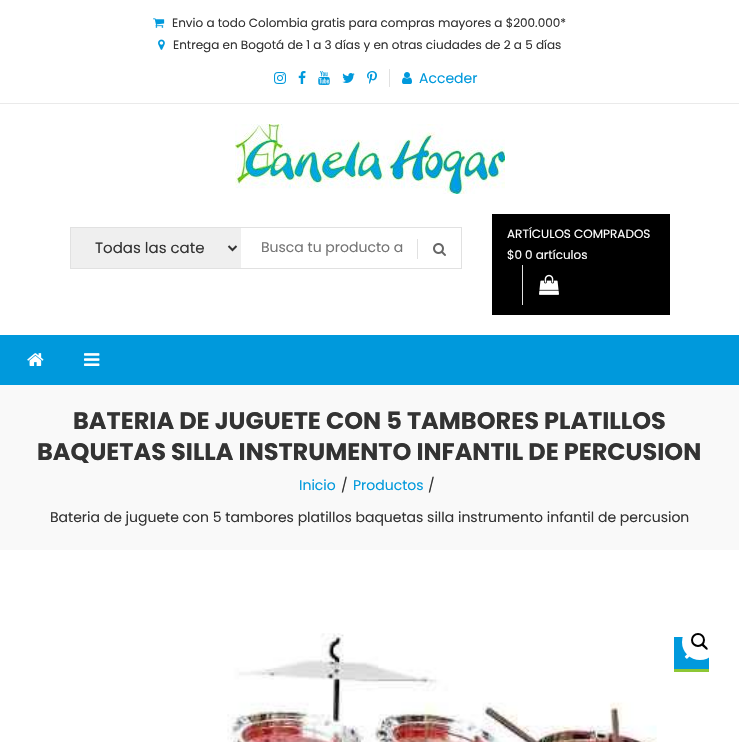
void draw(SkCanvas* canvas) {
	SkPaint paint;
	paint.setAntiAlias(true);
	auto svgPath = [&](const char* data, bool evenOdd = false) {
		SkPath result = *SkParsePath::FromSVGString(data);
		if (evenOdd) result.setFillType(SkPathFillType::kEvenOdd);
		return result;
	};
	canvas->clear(0xffffffff);
	paint.setColor(0xffeaeaea);
	canvas->drawRect(SkRect::MakeXYWH(0, 103, 739, 1), paint);
	canvas->drawImageRect(SkImages::DeferredFromEncodedData(SkData::MakeFromFileName("img1.png")), SkRect::MakeXYWH(153, 18, 12, 10), SkSamplingOptions());
	SkFont f1(fontMgr->matchFamilyStyle("Poppins", SkFontStyle::Normal()), 12);
	f1.setSubpixel(true);
	paint.setColor(0xff333333);
	canvas->drawString("Envio a todo Colombia gratis para compras mayores a $200.000*", 172, 27, f1, paint);
	canvas->drawImageRect(SkImages::DeferredFromEncodedData(SkData::MakeFromFileName("img2.png")), SkRect::MakeXYWH(158, 39, 7, 11), SkSamplingOptions());
	canvas->drawString("Entrega en Bogotá de 1 a 3 días y en otras ciudades de 2 a 5 días", 173, 49, f1, paint);
	canvas->drawImageRect(SkImages::DeferredFromEncodedData(SkData::MakeFromFileName("img3.png")), SkRect::MakeXYWH(274, 72, 12, 12), SkSamplingOptions());
	canvas->drawImageRect(SkImages::DeferredFromEncodedData(SkData::MakeFromFileName("img4.png")), SkRect::MakeXYWH(298, 71, 8, 13), SkSamplingOptions());
	canvas->drawImageRect(SkImages::DeferredFromEncodedData(SkData::MakeFromFileName("img5.png")), SkRect::MakeXYWH(318, 71, 12, 14), SkSamplingOptions());
	canvas->drawImageRect(SkImages::DeferredFromEncodedData(SkData::MakeFromFileName("img6.png")), SkRect::MakeXYWH(342, 73, 13, 10), SkSamplingOptions());
	canvas->drawImageRect(SkImages::DeferredFromEncodedData(SkData::MakeFromFileName("img7.png")), SkRect::MakeXYWH(367, 71, 10, 13), SkSamplingOptions());
	paint.setColor(0xffe1e1e1);
	canvas->drawRect(SkRect::MakeXYWH(389, 69, 1, 18), paint);
	canvas->drawImageRect(SkImages::DeferredFromEncodedData(SkData::MakeFromFileName("img8.png")), SkRect::MakeXYWH(402, 72, 10, 12), SkSamplingOptions());
	SkFont f2(fontMgr->matchFamilyStyle("Poppins", SkFontStyle::Normal()), 14);
	f2.setSubpixel(true);
	paint.setColor(0xff0099dc);
	canvas->drawString("Acceder", 419, 83, f2, paint);
	canvas->drawImageRect(SkImages::DeferredFromEncodedData(SkData::MakeFromFileName("img9.png")), SkRect::MakeXYWH(235, 124, 270, 70), SkSamplingOptions());
	paint.setStroke(true);
	paint.setStrokeWidth(1);
	paint.setColor(0xffe1e1e1);
	canvas->drawRect(SkRect::MakeXYWH(70.5, 227.5, 391, 41), paint);
	paint.setStroke(false);
	paint.setColor(0xffefefef);
	canvas->drawRect(SkRect::MakeXYWH(71, 228, 170, 40), paint);
	paint.setStroke(true);
	paint.setStrokeWidth(2);
	paint.setColor(0xff333333);
	canvas->drawPath(svgPath("M228.5 246L232.5 250L236.5 246"), paint);
	SkFont f3(fontMgr->matchFamilyStyle("Poppins", SkFontStyle::Normal()), 15);
	f3.setSubpixel(true);
	paint.setStroke(false);
	canvas->drawString("Todas las cate", 95, 253, f3, paint);
	paint.setColor(0xff757575);
	canvas->drawString("Busca tu producto a", 261, 252, f2, paint);
	paint.setColor(0xffe1e1e1);
	canvas->drawRect(SkRect::MakeXYWH(417, 239, 1, 20), paint);
	canvas->drawImageRect(SkImages::DeferredFromEncodedData(SkData::MakeFromFileName("img10.png")), SkRect::MakeXYWH(433, 243, 13, 13), SkSamplingOptions());
	paint.setColor(0xff000000);
	canvas->drawRect(SkRect::MakeXYWH(492, 214, 178, 101), paint);
	paint.setColor(0xffffffff);
	canvas->drawString("ARTÍCULOS COMPRADOS", 507, 238, f1, paint);
	canvas->drawString("$0", 507, 259, f1, paint);
	canvas->drawString("0 artículos", 525, 259, f1, paint);
	paint.setColor(0xffe1e1e1);
	canvas->drawRect(SkRect::MakeXYWH(522, 265, 1, 40), paint);
	canvas->drawImageRect(SkImages::DeferredFromEncodedData(SkData::MakeFromFileName("img11.png")), SkRect::MakeXYWH(539, 274, 20, 21), SkSamplingOptions());
	paint.setColor(0xff0099dc);
	canvas->drawRect(SkRect::MakeXYWH(0, 335, 739, 50), paint);
	canvas->drawImageRect(SkImages::DeferredFromEncodedData(SkData::MakeFromFileName("img12.png")), SkRect::MakeXYWH(27, 353, 17, 13), SkSamplingOptions());
	canvas->drawImageRect(SkImages::DeferredFromEncodedData(SkData::MakeFromFileName("img13.png")), SkRect::MakeXYWH(84, 353, 16, 13), SkSamplingOptions());
	paint.setColor(0xfff9f9f9);
	canvas->drawRect(SkRect::MakeXYWH(0, 385, 739, 165), paint);
	SkFont f4(fontMgr->matchFamilyStyle("Poppins", SkFontStyle::Bold()), 24);
	f4.setSubpixel(true);
	paint.setColor(0xff333333);
	canvas->drawString("BATERIA DE JUGUETE CON 5 TAMBORES PLATILLOS", 73, 429, f4, paint);
	canvas->drawString("BAQUETAS SILLA INSTRUMENTO INFANTIL DE PERCUSION", 37, 460, f4, paint);
	paint.setColor(0xff0099dc);
	canvas->drawString("Inicio", 299, 490, f2, paint);
	paint.setColor(0xff333333);
	canvas->drawString("/", 341, 490, f2, paint);
	paint.setColor(0xff0099dc);
	canvas->drawString("Productos", 353, 490, f2, paint);
	paint.setColor(0xff333333);
	canvas->drawString("/", 428, 490, f2, paint);
	canvas->drawString("Bateria de juguete con 5 tambores platillos baquetas silla instrumento infantil de percusion", 50, 522, f2, paint);
	canvas->drawImageRect(SkImages::DeferredFromEncodedData(SkData::MakeFromFileName("img14.png")), SkRect::MakeXYWH(227, 633, 430, 109), SkSamplingOptions());
	paint.setColor(0xff0099dc);
	canvas->drawRect(SkRect::MakeXYWH(674, 637, 35, 32), paint);
	canvas->drawImageRect(SkImages::DeferredFromEncodedData(SkData::MakeFromFileName("img15.png")), SkRect::MakeXYWH(684, 654, 6, 5), SkSamplingOptions());
	paint.setColor(0xffffffff);
	canvas->drawCircle(700, 642, 18, paint);
	paint.setStroke(true);
	paint.setColor(0xff000000);
	canvas->drawCircle(698, 640, 6, paint);
	paint.setStroke(false);
	canvas->drawPath(svgPath("M702 644C703 642.5 704.5 645.5 705.5 646C706 646.5 708.5 648.5 707.5 649.5C706.5 650.5 704.5 648 704 647.5C703.5 647 700.5 645 702 644Z"), paint);
	paint.setColor(0xff8dc735);
	canvas->drawRect(SkRect::MakeXYWH(674, 669, 35, 3), paint);
}
